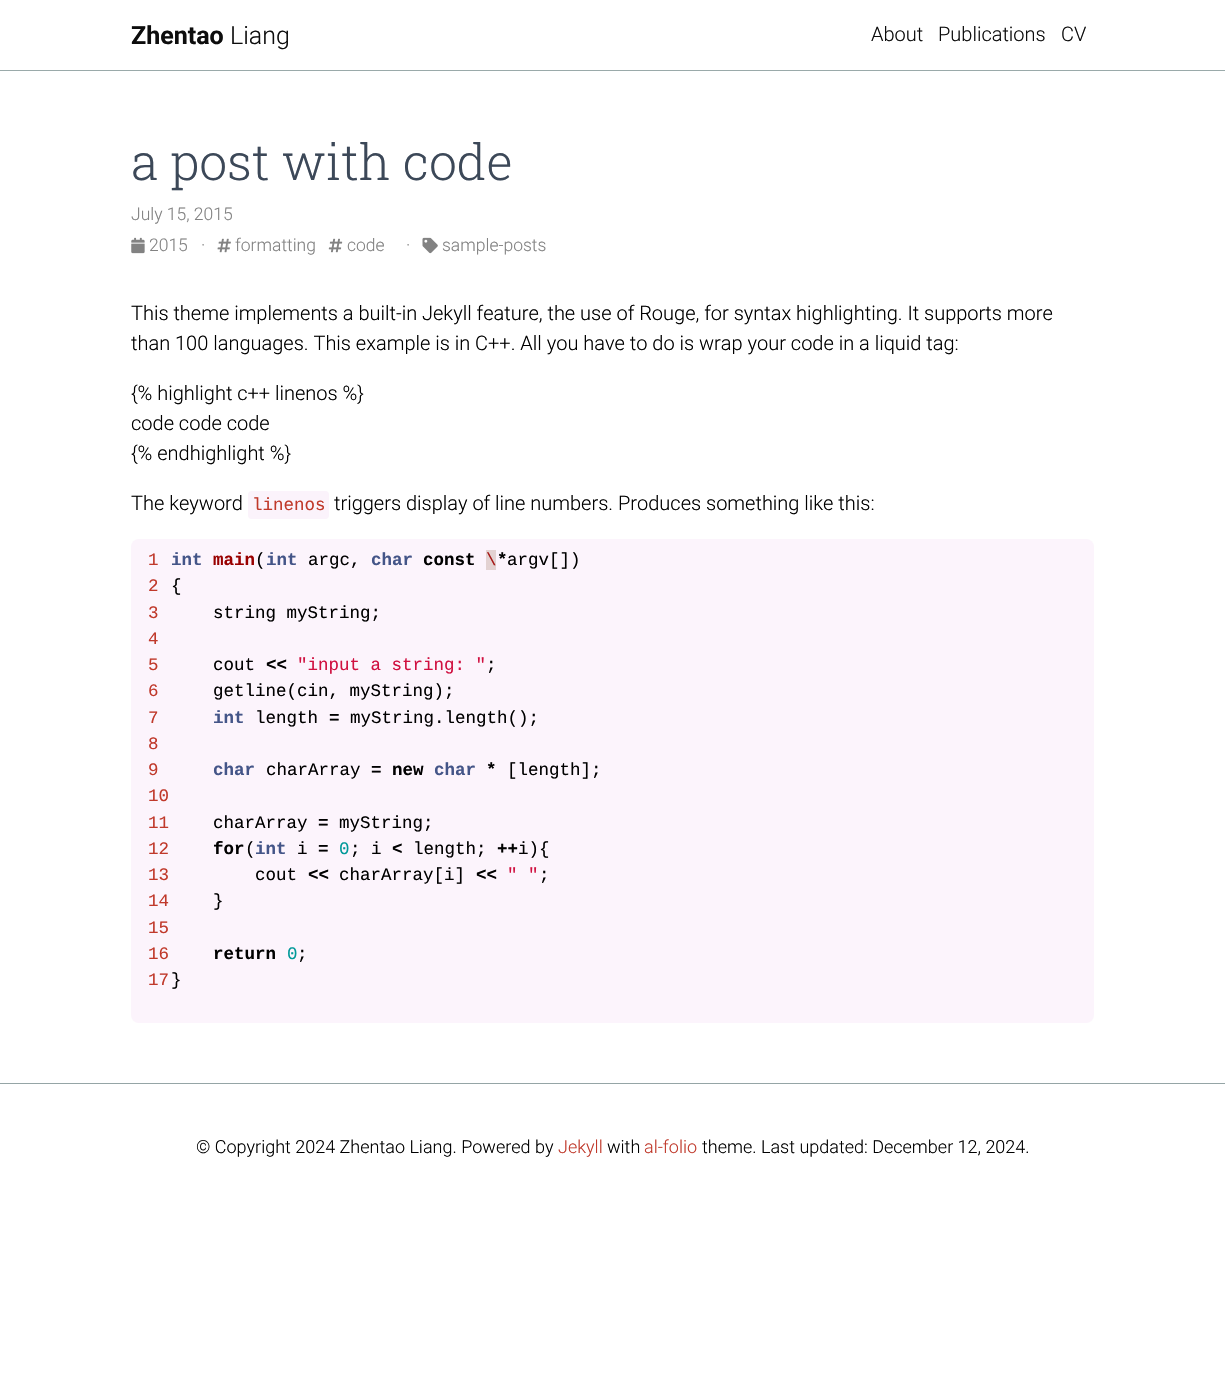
void draw(SkCanvas* canvas) {
	SkPaint paint;
	paint.setAntiAlias(true);
	canvas->clear(0xffffffff);
	paint.setColor(0xff9aaaaa);
	canvas->drawRect(SkRect::MakeXYWH(0, 70, 1225, 1), paint);
	SkFont f1(fontMgr->matchFamilyStyle("Roboto", SkFontStyle::Bold()), 25);
	f1.setSubpixel(true);
	paint.setColor(0xff0d0d0d);
	canvas->drawString("Zhentao", 131, 44, f1, paint);
	SkFont f2(fontMgr->matchFamilyStyle("Roboto", SkFontStyle(300, SkFontStyle::kNormal_Width, SkFontStyle::kUpright_Slant)), 25);
	f2.setSubpixel(true);
	canvas->drawString("Liang", 230, 44, f2, paint);
	SkFont f3(fontMgr->matchFamilyStyle("Roboto", SkFontStyle(300, SkFontStyle::kNormal_Width, SkFontStyle::kUpright_Slant)), 20);
	f3.setSubpixel(true);
	canvas->drawString("About", 871, 41, f3, paint);
	canvas->drawString("Publications", 938, 41, f3, paint);
	canvas->drawString("CV", 1061, 41, f3, paint);
	SkFont f4(fontMgr->matchFamilyStyle("Roboto Slab", SkFontStyle(300, SkFontStyle::kNormal_Width, SkFontStyle::kUpright_Slant)), 50);
	f4.setSubpixel(true);
	paint.setColor(0xff3c4858);
	canvas->drawString("a post with code", 131, 180, f4, paint);
	SkFont f5(fontMgr->matchFamilyStyle("Roboto", SkFontStyle(300, SkFontStyle::kNormal_Width, SkFontStyle::kUpright_Slant)), 17.5);
	f5.setSubpixel(true);
	paint.setColor(0xff828282);
	canvas->drawString("July 15, 2015", 131, 220, f5, paint);
	canvas->drawImageRect(SkImages::DeferredFromEncodedData(SkData::MakeFromFileName("img1.png")), SkRect::MakeXYWH(131, 237, 14, 17), SkSamplingOptions());
	canvas->drawString("2015", 149, 251, f5, paint);
	canvas->drawString("·", 201, 251, f5, paint);
	canvas->drawImageRect(SkImages::DeferredFromEncodedData(SkData::MakeFromFileName("img2.png")), SkRect::MakeXYWH(217, 238, 14, 15), SkSamplingOptions());
	canvas->drawString("formatting", 235, 251, f5, paint);
	canvas->drawImageRect(SkImages::DeferredFromEncodedData(SkData::MakeFromFileName("img3.png")), SkRect::MakeXYWH(328, 238, 15, 15), SkSamplingOptions());
	canvas->drawString("code", 347, 251, f5, paint);
	canvas->drawString("·", 406, 251, f5, paint);
	canvas->drawImageRect(SkImages::DeferredFromEncodedData(SkData::MakeFromFileName("img4.png")), SkRect::MakeXYWH(422, 237, 16, 17), SkSamplingOptions());
	canvas->drawString("sample-posts", 442, 251, f5, paint);
	paint.setColor(0xff000000);
	canvas->drawString("This theme implements a built-in Jekyll feature, the use of Rouge, for syntax highlighting. It supports more", 131, 320, f3, paint);
	canvas->drawString("than 100 languages. This example is in C++. All you have to do is wrap your code in a liquid tag:", 131, 350, f3, paint);
	canvas->drawString("{% highlight c++ linenos %}", 131, 400, f3, paint);
	canvas->drawString("code code code", 131, 430, f3, paint);
	canvas->drawString("{% endhighlight %}", 131, 460, f3, paint);
	canvas->drawString("The keyword", 131, 510, f3, paint);
	paint.setColor(0xfffbf3fb);
	canvas->drawRoundRect(SkRect::MakeXYWH(248, 491, 81, 28), 4, 4, paint);
	SkFont f6(fontMgr->matchFamilyStyle("Liberation Mono", SkFontStyle::Normal()), 17.5);
	f6.setSubpixel(true);
	paint.setColor(0xffc0392b);
	canvas->drawString("linenos", 252, 510, f6, paint);
	paint.setColor(0xff000000);
	canvas->drawString("triggers display of line numbers. Produces something like this:", 334, 510, f3, paint);
	paint.setColor(0xfffcf4fc);
	canvas->drawRoundRect(SkRect::MakeXYWH(131, 539, 963, 484), 8, 8, paint);
	paint.setColor(0xffc0392b);
	canvas->drawString("1", 148, 565, f6, paint);
	canvas->drawString("2", 148, 591, f6, paint);
	canvas->drawString("3", 148, 618, f6, paint);
	canvas->drawString("4", 148, 644, f6, paint);
	canvas->drawString("5", 148, 670, f6, paint);
	canvas->drawString("6", 148, 696, f6, paint);
	canvas->drawString("7", 148, 723, f6, paint);
	canvas->drawString("8", 148, 749, f6, paint);
	canvas->drawString("9", 148, 775, f6, paint);
	canvas->drawString("10", 148, 801, f6, paint);
	canvas->drawString("11", 148, 828, f6, paint);
	canvas->drawString("12", 148, 854, f6, paint);
	canvas->drawString("13", 148, 880, f6, paint);
	canvas->drawString("14", 148, 906, f6, paint);
	canvas->drawString("15", 148, 933, f6, paint);
	canvas->drawString("16", 148, 959, f6, paint);
	canvas->drawString("17", 148, 985, f6, paint);
	SkFont f7(fontMgr->matchFamilyStyle("Liberation Mono", SkFontStyle::Bold()), 17.5);
	f7.setSubpixel(true);
	paint.setColor(0xff445588);
	canvas->drawString("int", 171, 565, f7, paint);
	paint.setColor(0xff990000);
	canvas->drawString("main", 213, 565, f7, paint);
	paint.setColor(0xff000000);
	canvas->drawString("(", 255, 565, f6, paint);
	paint.setColor(0xff445588);
	canvas->drawString("int", 266, 565, f7, paint);
	paint.setColor(0xff000000);
	canvas->drawString("argc,", 308, 565, f6, paint);
	paint.setColor(0xff445588);
	canvas->drawString("char", 371, 565, f7, paint);
	paint.setColor(0xff000000);
	canvas->drawString("const", 423, 565, f7, paint);
	paint.setColor(0xffe3d2d2);
	canvas->drawRect(SkRect::MakeXYWH(486, 550, 10, 20), paint);
	paint.setColor(0xffa61717);
	canvas->drawString("\\", 486, 565, f6, paint);
	paint.setColor(0xff000000);
	canvas->drawString("*", 497, 565, f7, paint);
	canvas->drawString("argv[])", 507, 565, f6, paint);
	canvas->drawString("{", 171, 591, f6, paint);
	canvas->drawString("string myString;", 213, 618, f6, paint);
	canvas->drawString("cout", 213, 670, f6, paint);
	canvas->drawString("<<", 266, 670, f7, paint);
	paint.setColor(0xffd01040);
	canvas->drawString("\"input a string: \"", 297, 670, f6, paint);
	paint.setColor(0xff000000);
	canvas->drawString(";", 486, 670, f6, paint);
	canvas->drawString("getline(cin, myString);", 213, 696, f6, paint);
	paint.setColor(0xff445588);
	canvas->drawString("int", 213, 723, f7, paint);
	paint.setColor(0xff000000);
	canvas->drawString("length", 255, 723, f6, paint);
	canvas->drawString("=", 329, 723, f7, paint);
	canvas->drawString("myString.length();", 350, 723, f6, paint);
	paint.setColor(0xff445588);
	canvas->drawString("char", 213, 775, f7, paint);
	paint.setColor(0xff000000);
	canvas->drawString("charArray", 266, 775, f6, paint);
	canvas->drawString("= new", 371, 775, f7, paint);
	paint.setColor(0xff445588);
	canvas->drawString("char", 434, 775, f7, paint);
	paint.setColor(0xff000000);
	canvas->drawString("*", 486, 775, f7, paint);
	canvas->drawString("[length];", 507, 775, f6, paint);
	canvas->drawString("charArray", 213, 828, f6, paint);
	canvas->drawString("=", 318, 828, f7, paint);
	canvas->drawString("myString;", 339, 828, f6, paint);
	canvas->drawString("for", 213, 854, f7, paint);
	canvas->drawString("(", 245, 854, f6, paint);
	paint.setColor(0xff445588);
	canvas->drawString("int", 255, 854, f7, paint);
	paint.setColor(0xff000000);
	canvas->drawString("i", 297, 854, f6, paint);
	canvas->drawString("=", 318, 854, f7, paint);
	paint.setColor(0xff009999);
	canvas->drawString("0", 339, 854, f6, paint);
	paint.setColor(0xff000000);
	canvas->drawString("; i", 350, 854, f6, paint);
	canvas->drawString("<", 392, 854, f7, paint);
	canvas->drawString("length;", 413, 854, f6, paint);
	canvas->drawString("++", 497, 854, f7, paint);
	canvas->drawString("i){", 518, 854, f6, paint);
	canvas->drawString("cout", 255, 880, f6, paint);
	canvas->drawString("<<", 308, 880, f7, paint);
	canvas->drawString("charArray[i]", 339, 880, f6, paint);
	canvas->drawString("<<", 476, 880, f7, paint);
	paint.setColor(0xffd01040);
	canvas->drawString("\" \"", 507, 880, f6, paint);
	paint.setColor(0xff000000);
	canvas->drawString(";", 539, 880, f6, paint);
	canvas->drawString("}", 213, 906, f6, paint);
	canvas->drawString("return", 213, 959, f7, paint);
	paint.setColor(0xff009999);
	canvas->drawString("0", 287, 959, f6, paint);
	paint.setColor(0xff000000);
	canvas->drawString(";", 297, 959, f6, paint);
	canvas->drawString("}", 171, 985, f6, paint);
	paint.setColor(0xff95a5a6);
	canvas->drawRect(SkRect::MakeXYWH(0, 1083, 1225, 1), paint);
	SkFont f8(fontMgr->matchFamilyStyle("Roboto", SkFontStyle(300, SkFontStyle::kNormal_Width, SkFontStyle::kUpright_Slant)), 18);
	f8.setSubpixel(true);
	paint.setColor(0xff000000);
	canvas->drawString("© Copyright 2024 Zhentao Liang. Powered by", 196, 1153, f8, paint);
	paint.setColor(0xffc0392b);
	canvas->drawString("Jekyll", 558, 1153, f8, paint);
	paint.setColor(0xff000000);
	canvas->drawString("with", 607, 1153, f8, paint);
	paint.setColor(0xffc0392b);
	canvas->drawString("al-folio", 644, 1153, f8, paint);
	paint.setColor(0xff000000);
	canvas->drawString("theme. Last updated: December 12, 2024.", 702, 1153, f8, paint);
}
